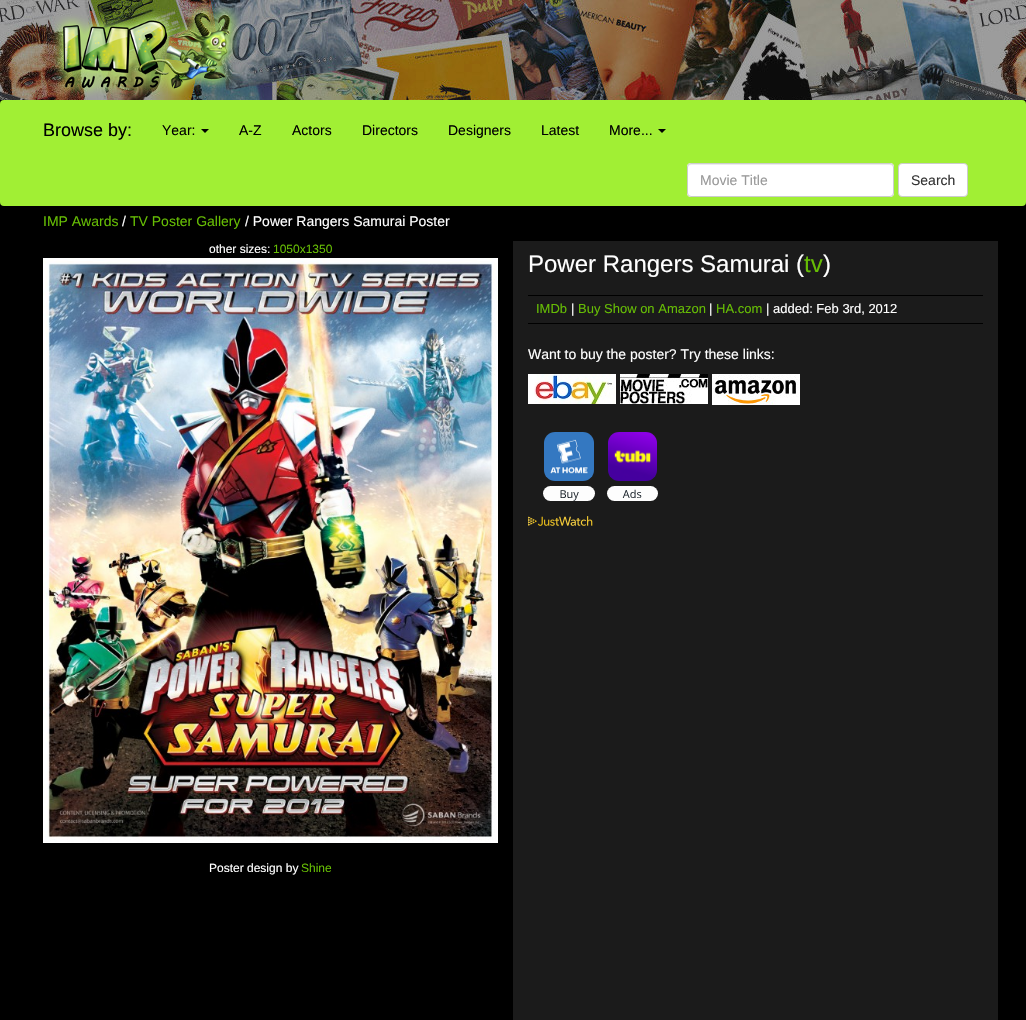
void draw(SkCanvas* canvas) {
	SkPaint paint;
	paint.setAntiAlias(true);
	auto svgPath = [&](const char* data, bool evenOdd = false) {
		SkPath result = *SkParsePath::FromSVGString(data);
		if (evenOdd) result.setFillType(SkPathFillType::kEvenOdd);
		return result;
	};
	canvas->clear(0xff000000);
	canvas->drawImageRect(SkImages::DeferredFromEncodedData(SkData::MakeFromFileName("img1.png")), SkRect::MakeXYWH(0, 0, 1026, 100), SkSamplingOptions());
	canvas->drawImageRect(SkImages::DeferredFromEncodedData(SkData::MakeFromFileName("img2.png")), SkRect::MakeXYWH(52, 2, 188, 96), SkSamplingOptions());
	paint.setColor(0xffa1ef34);
	canvas->drawRoundRect(SkRect::MakeXYWH(0, 100, 1026, 106), 4, 4, paint);
	SkFont f1(fontMgr->matchFamilyStyle("Liberation Sans", SkFontStyle::Normal()), 18);
	f1.setSubpixel(true);
	paint.setColor(0xff000000);
	canvas->drawString("Browse by:", 43, 136, f1, paint);
	SkFont f2(fontMgr->matchFamilyStyle("Liberation Sans", SkFontStyle::Normal()), 14);
	f2.setSubpixel(true);
	canvas->drawString("Year:", 162, 135, f2, paint);
	canvas->drawPath(svgPath("M201 129H209L205 133Z"), paint);
	canvas->drawString("A-Z", 239, 135, f2, paint);
	canvas->drawString("Actors", 292, 135, f2, paint);
	canvas->drawString("Directors", 362, 135, f2, paint);
	canvas->drawString("Designers", 448, 135, f2, paint);
	canvas->drawString("Latest", 541, 135, f2, paint);
	canvas->drawString("More...", 609, 135, f2, paint);
	canvas->drawPath(svgPath("M658 129H666L662 133Z"), paint);
	paint.setColor(0xffffffff);
	canvas->drawRoundRect(SkRect::MakeXYWH(687, 163, 207, 34), 4, 4, paint);
	paint.setColor(0xffececec);
	canvas->drawPath(svgPath("M691 165H890C892 165 893 166 893 168C893 166 892 164 890 164H691C689 164 688 166 688 168C688 166 689 165 691 165Z"), paint);
	paint.setStroke(true);
	paint.setStrokeWidth(1);
	paint.setColor(0xffcccccc);
	canvas->drawRoundRect(SkRect::MakeXYWH(687.5, 163.5, 206, 33), 3.5, 3.5, paint);
	paint.setStroke(false);
	paint.setColor(0xff999999);
	canvas->drawString("Movie Title", 700, 185, f2, paint);
	paint.setColor(0xffffffff);
	canvas->drawRoundRect(SkRect::MakeXYWH(898.5, 163.5, 69, 33), 3.5, 3.5, paint);
	paint.setStroke(true);
	paint.setColor(0xffcccccc);
	canvas->drawRoundRect(SkRect::MakeXYWH(898.5, 163.5, 69, 33), 3.5, 3.5, paint);
	paint.setStroke(false);
	paint.setColor(0xff333333);
	canvas->drawString("Search", 911, 185, f2, paint);
	paint.setColor(0xff66bd04);
	canvas->drawString("IMP Awards", 43, 226, f2, paint);
	paint.setColor(0xffffffff);
	canvas->drawString("/", 122, 226, f2, paint);
	paint.setColor(0xff66bd04);
	canvas->drawString("TV Poster Gallery", 130, 226, f2, paint);
	paint.setColor(0xffffffff);
	canvas->drawString("/ Power Rangers Samurai Poster", 245, 226, f2, paint);
	SkFont f3(fontMgr->matchFamilyStyle("Liberation Sans", SkFontStyle::Normal()), 12);
	f3.setSubpixel(true);
	canvas->drawString("other sizes:", 209, 253, f3, paint);
	paint.setColor(0xff66bd04);
	canvas->drawString("1050x1350", 273, 253, f3, paint);
	canvas->drawImageRect(SkImages::DeferredFromEncodedData(SkData::MakeFromFileName("img3.png")), SkRect::MakeXYWH(43, 258, 455, 585), SkSamplingOptions());
	paint.setColor(0xffffffff);
	canvas->drawString("Poster design by", 209, 872, f3, paint);
	paint.setColor(0xff66bd04);
	canvas->drawString("Shine", 301, 872, f3, paint);
	paint.setColor(0xff1b1b1b);
	canvas->drawRect(SkRect::MakeXYWH(513, 241, 485, 779), paint);
	SkFont f4(fontMgr->matchFamilyStyle("Liberation Sans", SkFontStyle::Normal()), 24);
	f4.setSubpixel(true);
	paint.setColor(0xffffffff);
	canvas->drawString("Power Rangers Samurai (", 528, 272, f4, paint);
	paint.setColor(0xff66bd04);
	canvas->drawString("tv", 804, 272, f4, paint);
	paint.setColor(0xffffffff);
	canvas->drawString(")", 823, 272, f4, paint);
	paint.setColor(0xff000000);
	canvas->drawRect(SkRect::MakeXYWH(528, 295, 455, 1), paint);
	canvas->drawRect(SkRect::MakeXYWH(528, 323, 455, 1), paint);
	SkFont f5(fontMgr->matchFamilyStyle("Liberation Sans", SkFontStyle::Normal()), 13);
	f5.setSubpixel(true);
	paint.setColor(0xff66bd04);
	canvas->drawString("IMDb", 536, 313, f5, paint);
	paint.setColor(0xffffffff);
	canvas->drawString("|", 571, 313, f5, paint);
	paint.setColor(0xff66bd04);
	canvas->drawString("Buy Show on Amazon", 578, 313, f5, paint);
	paint.setColor(0xffffffff);
	canvas->drawString("|", 709, 313, f5, paint);
	paint.setColor(0xff66bd04);
	canvas->drawString("HA.com", 716, 313, f5, paint);
	paint.setColor(0xffffffff);
	canvas->drawString("| added: Feb 3rd, 2012", 766, 313, f5, paint);
	canvas->drawString("Want to buy the poster? Try these links:", 528, 359, f2, paint);
	canvas->drawImageRect(SkImages::DeferredFromEncodedData(SkData::MakeFromFileName("img4.png")), SkRect::MakeXYWH(528, 374, 88, 30), SkSamplingOptions());
	canvas->drawImageRect(SkImages::DeferredFromEncodedData(SkData::MakeFromFileName("img5.png")), SkRect::MakeXYWH(620, 374, 88, 30), SkSamplingOptions());
	canvas->drawImageRect(SkImages::DeferredFromEncodedData(SkData::MakeFromFileName("img6.png")), SkRect::MakeXYWH(712, 374, 88, 31), SkSamplingOptions());
	canvas->drawImageRect(SkImages::DeferredFromEncodedData(SkData::MakeFromFileName("img7.png")), SkRect::MakeXYWH(543, 432, 115, 69), SkSamplingOptions());
	canvas->drawImageRect(SkImages::DeferredFromEncodedData(SkData::MakeFromFileName("img8.png")), SkRect::MakeXYWH(528, 516, 65, 10), SkSamplingOptions());
}
